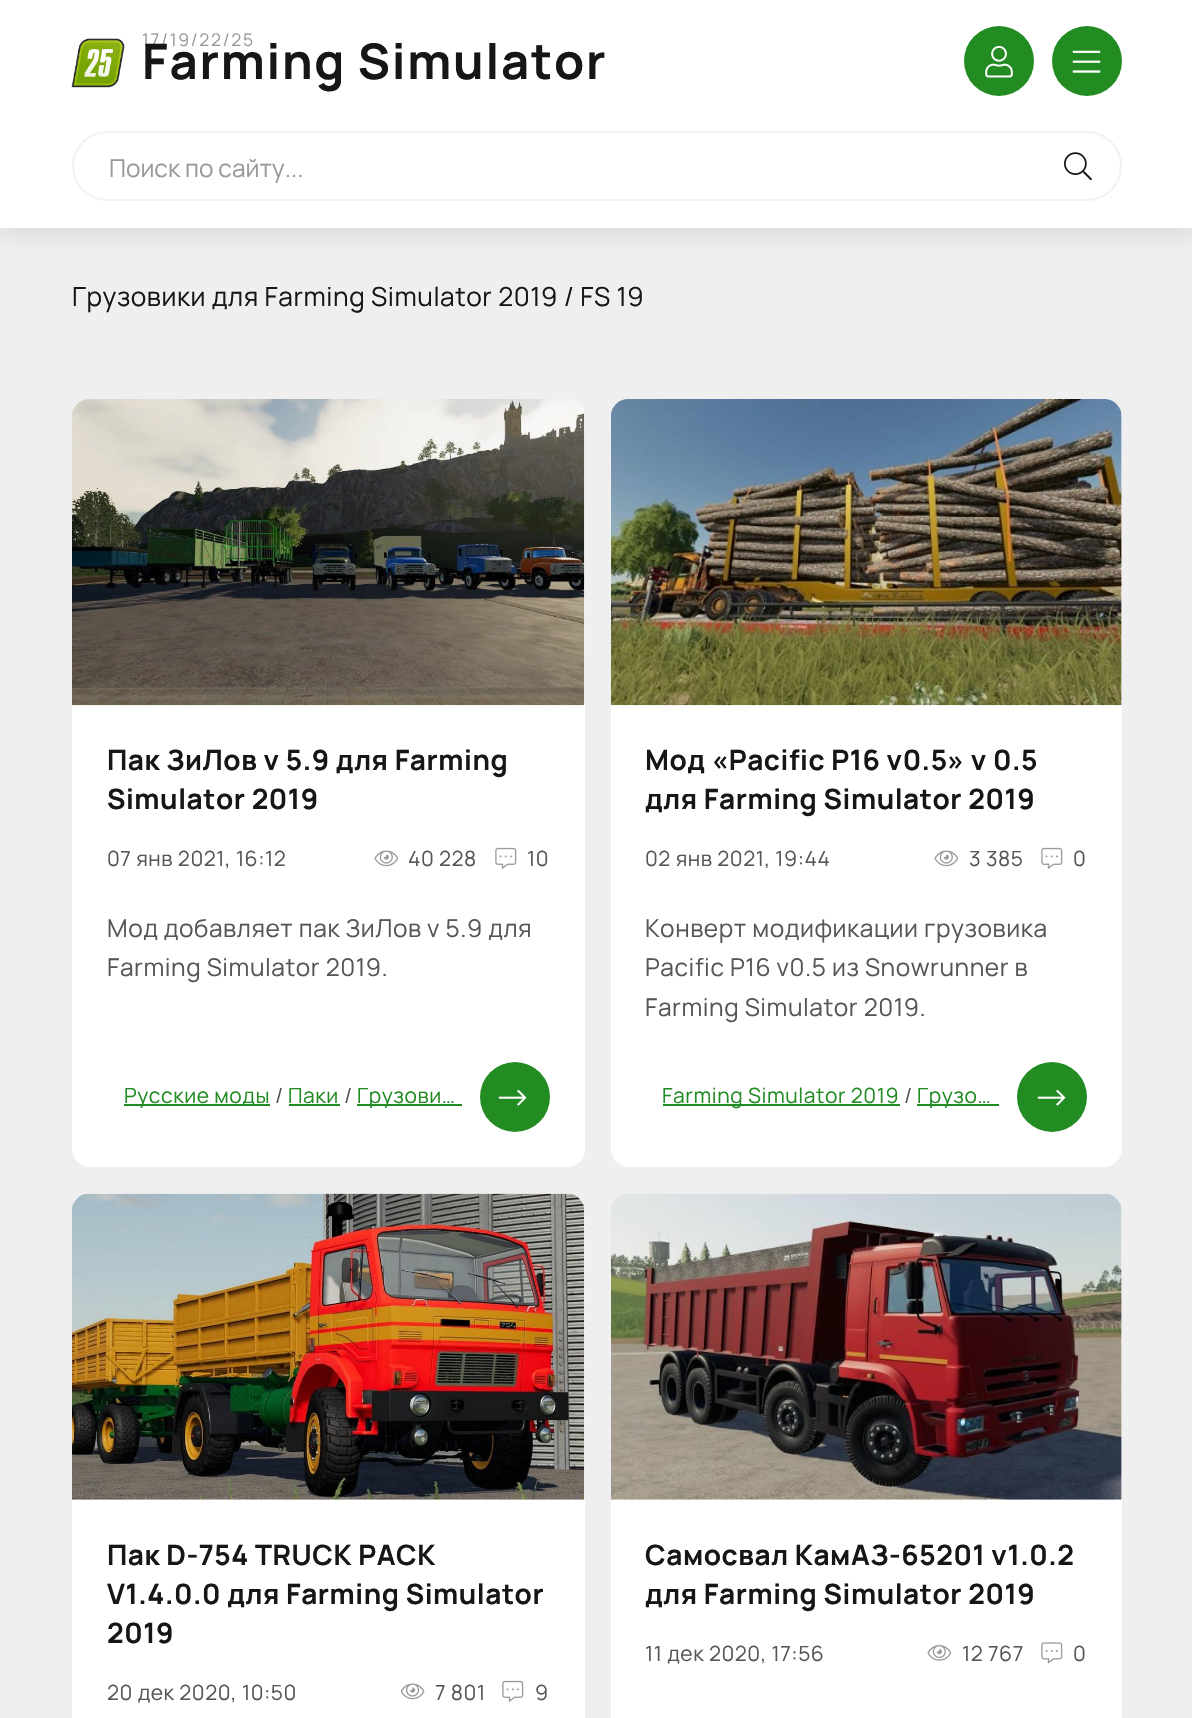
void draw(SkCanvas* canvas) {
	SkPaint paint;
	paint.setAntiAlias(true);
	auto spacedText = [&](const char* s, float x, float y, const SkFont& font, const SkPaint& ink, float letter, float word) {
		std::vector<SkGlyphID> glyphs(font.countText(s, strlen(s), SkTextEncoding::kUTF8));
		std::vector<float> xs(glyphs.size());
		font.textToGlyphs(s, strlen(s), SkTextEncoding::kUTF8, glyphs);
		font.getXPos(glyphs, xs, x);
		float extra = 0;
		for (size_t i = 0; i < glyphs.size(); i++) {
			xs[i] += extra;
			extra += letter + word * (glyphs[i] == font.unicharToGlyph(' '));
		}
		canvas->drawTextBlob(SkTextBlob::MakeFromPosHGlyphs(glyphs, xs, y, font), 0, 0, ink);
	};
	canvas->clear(0xffefefef);
	paint.setColor(0x14000000);
	paint.setMaskFilter(SkMaskFilter::MakeBlur(kNormal_SkBlurStyle, 9));
	canvas->drawRect(SkRect::MakeXYWH(0, 9, 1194, 227), paint);
	paint.setMaskFilter(nullptr);
	paint.setColor(0xffffffff);
	canvas->drawRect(SkRect::MakeXYWH(0, 0, 1192, 228), paint);
	canvas->drawImageRect(SkImages::DeferredFromEncodedData(SkData::MakeFromFileName("img1.png")), SkRect::MakeXYWH(71, 38, 54, 50), SkSamplingOptions());
	SkFont f1(fontMgr->matchFamilyStyle("Manrope", SkFontStyle(200, SkFontStyle::kNormal_Width, SkFontStyle::kUpright_Slant)), 17.5);
	f1.setSubpixel(true);
	paint.setColor(0xff999999);
	spacedText("17/19/22/25", 142, 46, f1, paint, 1.75, 0);
	SkFont f2(fontMgr->matchFamilyStyle("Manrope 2", SkFontStyle(200, SkFontStyle::kNormal_Width, SkFontStyle::kUpright_Slant)), 49);
	f2.setSubpixel(true);
	paint.setColor(0xff161616);
	spacedText("Farming Simulator", 142, 79, f2, paint, 1.75, 0);
	paint.setColor(0xff228b22);
	canvas->drawCircle(999, 61, 35, paint);
	canvas->drawImageRect(SkImages::DeferredFromEncodedData(SkData::MakeFromFileName("img2.png")), SkRect::MakeXYWH(985, 45, 28, 33), SkSamplingOptions());
	canvas->drawCircle(1087, 61, 35, paint);
	canvas->drawImageRect(SkImages::DeferredFromEncodedData(SkData::MakeFromFileName("img3.png")), SkRect::MakeXYWH(1072, 50, 29, 23), SkSamplingOptions());
	paint.setStroke(true);
	paint.setStrokeWidth(2);
	paint.setColor(0xfff2f2f2);
	canvas->drawRoundRect(SkRect::MakeXYWH(73, 132, 1048, 68), 34, 34, paint);
	SkFont f3(fontMgr->matchFamilyStyle("Manrope", SkFontStyle(200, SkFontStyle::kNormal_Width, SkFontStyle::kUpright_Slant)), 24.5);
	f3.setSubpixel(true);
	paint.setStroke(false);
	paint.setColor(0xff999999);
	canvas->drawString("Поиск по сайту...", 109, 177, f3, paint);
	canvas->drawImageRect(SkImages::DeferredFromEncodedData(SkData::MakeFromFileName("img4.png")), SkRect::MakeXYWH(1064, 152, 28, 29), SkSamplingOptions());
	SkFont f4(fontMgr->matchFamilyStyle("Manrope", SkFontStyle(200, SkFontStyle::kNormal_Width, SkFontStyle::kUpright_Slant)), 26.25);
	f4.setSubpixel(true);
	paint.setColor(0xff161616);
	spacedText("Грузовики для Farming Simulator 2019 / FS 19", 72, 306, f4, paint, 0.55, 0);
	paint.setColor(0xffffffff);
	canvas->drawRoundRect(SkRect::MakeXYWH(72, 399, 513, 768), 18, 18, paint);
	canvas->drawImageRect(SkImages::DeferredFromEncodedData(SkData::MakeFromFileName("img5.png")), SkRect::MakeXYWH(72, 399, 513, 307), SkSamplingOptions());
	SkFont f5(fontMgr->matchFamilyStyle("Manrope 2", SkFontStyle(200, SkFontStyle::kNormal_Width, SkFontStyle::kUpright_Slant)), 28);
	f5.setSubpixel(true);
	paint.setColor(0xff161616);
	spacedText("Пак ЗиЛов v 5.9 для Farming", 107, 770, f5, paint, 0.55, 0);
	spacedText("Simulator 2019", 107, 809, f5, paint, 0.55, 0);
	SkFont f6(fontMgr->matchFamilyStyle("Manrope", SkFontStyle(200, SkFontStyle::kNormal_Width, SkFontStyle::kUpright_Slant)), 21);
	f6.setSubpixel(true);
	paint.setColor(0xff565656);
	spacedText("07 янв 2021, 16:12", 107, 866, f6, paint, 0.55, 0);
	canvas->drawImageRect(SkImages::DeferredFromEncodedData(SkData::MakeFromFileName("img6.png")), SkRect::MakeXYWH(374, 850, 25, 17), SkSamplingOptions());
	spacedText("40 228", 408, 866, f6, paint, 0.55, 0);
	canvas->drawImageRect(SkImages::DeferredFromEncodedData(SkData::MakeFromFileName("img7.png")), SkRect::MakeXYWH(495, 847, 22, 22), SkSamplingOptions());
	spacedText("10", 527, 866, f6, paint, 0.55, 0);
	spacedText("Мод добавляет пак ЗиЛов v 5.9 для", 107, 937, f3, paint, 0.55, 0);
	spacedText("Farming Simulator 2019.", 107, 976, f3, paint, 0.55, 0);
	paint.setColor(0xff228b22);
	canvas->drawRect(SkRect::MakeXYWH(124, 1104, 146, 2), paint);
	spacedText("Русские моды", 124, 1103, f6, paint, 0.55, 0);
	paint.setColor(0xff565656);
	spacedText("/", 275, 1103, f6, paint, 0.55, 0);
	paint.setColor(0xff228b22);
	spacedText("Паки", 288, 1103, f6, paint, 0.55, 0);
	canvas->drawRect(SkRect::MakeXYWH(289, 1104, 51, 2), paint);
	paint.setColor(0xff565656);
	spacedText("/", 344, 1103, f6, paint, 0.55, 0);
	paint.setColor(0xff228b22);
	canvas->drawRect(SkRect::MakeXYWH(357, 1104, 105, 2), paint);
	spacedText("Грузови…", 357, 1103, f6, paint, 0.55, 0);
	canvas->drawCircle(515, 1097, 35, paint);
	canvas->drawImageRect(SkImages::DeferredFromEncodedData(SkData::MakeFromFileName("img8.png")), SkRect::MakeXYWH(498, 1089, 29, 17), SkSamplingOptions());
	paint.setColor(0xffffffff);
	canvas->drawRoundRect(SkRect::MakeXYWH(611, 399, 511, 768), 18, 18, paint);
	canvas->drawImageRect(SkImages::DeferredFromEncodedData(SkData::MakeFromFileName("img9.png")), SkRect::MakeXYWH(611, 399, 511, 307), SkSamplingOptions());
	paint.setColor(0xff161616);
	spacedText("Мод «Pacific P16 v0.5» v 0.5", 645, 770, f5, paint, 0.55, 0);
	spacedText("для Farming Simulator 2019", 645, 809, f5, paint, 0.55, 0);
	paint.setColor(0xff565656);
	spacedText("02 янв 2021, 19:44", 645, 866, f6, paint, 0.55, 0);
	canvas->drawImageRect(SkImages::DeferredFromEncodedData(SkData::MakeFromFileName("img6.png")), SkRect::MakeXYWH(934, 850, 25, 17), SkSamplingOptions());
	spacedText("3 385", 969, 866, f6, paint, 0.55, 0);
	canvas->drawImageRect(SkImages::DeferredFromEncodedData(SkData::MakeFromFileName("img7.png")), SkRect::MakeXYWH(1041, 847, 22, 22), SkSamplingOptions());
	spacedText("0", 1073, 866, f6, paint, 0.55, 0);
	spacedText("Конверт модификации грузовика", 645, 937, f3, paint, 0.55, 0);
	spacedText("Pacific P16 v0.5 из Snowrunner в", 645, 976, f3, paint, 0.55, 0);
	spacedText("Farming Simulator 2019.", 645, 1016, f3, paint, 0.55, 0);
	paint.setColor(0xff228b22);
	canvas->drawRect(SkRect::MakeXYWH(663, 1104, 237, 2), paint);
	spacedText("Farming Simulator 2019", 662, 1103, f6, paint, 0.55, 0);
	paint.setColor(0xff565656);
	spacedText("/", 904, 1103, f6, paint, 0.55, 0);
	paint.setColor(0xff228b22);
	canvas->drawRect(SkRect::MakeXYWH(917, 1104, 82, 2), paint);
	spacedText("Грузо…", 917, 1103, f6, paint, 0.55, 0);
	canvas->drawCircle(1052, 1097, 35, paint);
	canvas->drawImageRect(SkImages::DeferredFromEncodedData(SkData::MakeFromFileName("img8.png")), SkRect::MakeXYWH(1037, 1089, 29, 17), SkSamplingOptions());
	paint.setColor(0xffffffff);
	canvas->drawRoundRect(SkRect::MakeXYWH(72, 1194, 513, 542), 18, 18, paint);
	canvas->drawImageRect(SkImages::DeferredFromEncodedData(SkData::MakeFromFileName("img10.png")), SkRect::MakeXYWH(72, 1193, 513, 307), SkSamplingOptions());
	paint.setColor(0xff161616);
	spacedText("Пак D-754 TRUCK PACK", 107, 1565, f5, paint, 0.55, 0);
	spacedText("V1.4.0.0 для Farming Simulator", 107, 1604, f5, paint, 0.55, 0);
	spacedText("2019", 107, 1643, f5, paint, 0.55, 0);
	paint.setColor(0xff565656);
	spacedText("20 дек 2020, 10:50", 107, 1700, f6, paint, 0.55, 0);
	canvas->drawImageRect(SkImages::DeferredFromEncodedData(SkData::MakeFromFileName("img11.png")), SkRect::MakeXYWH(400, 1683, 25, 17), SkSamplingOptions());
	spacedText("7 801", 435, 1700, f6, paint, 0.55, 0);
	canvas->drawImageRect(SkImages::DeferredFromEncodedData(SkData::MakeFromFileName("img7.png")), SkRect::MakeXYWH(502, 1680, 22, 22), SkSamplingOptions());
	spacedText("9", 535, 1700, f6, paint, 0.55, 0);
	paint.setColor(0xffffffff);
	canvas->drawRoundRect(SkRect::MakeXYWH(611, 1194, 511, 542), 18, 18, paint);
	canvas->drawImageRect(SkImages::DeferredFromEncodedData(SkData::MakeFromFileName("img12.png")), SkRect::MakeXYWH(611, 1193, 511, 307), SkSamplingOptions());
	paint.setColor(0xff161616);
	spacedText("Самосвал КамАЗ-65201 v1.0.2", 645, 1565, f5, paint, 0.55, 0);
	spacedText("для Farming Simulator 2019", 645, 1604, f5, paint, 0.55, 0);
	paint.setColor(0xff565656);
	spacedText("11 дек 2020, 17:56", 645, 1661, f6, paint, 0.55, 0);
	canvas->drawImageRect(SkImages::DeferredFromEncodedData(SkData::MakeFromFileName("img13.png")), SkRect::MakeXYWH(927, 1645, 25, 16), SkSamplingOptions());
	spacedText("12 767", 962, 1661, f6, paint, 0.55, 0);
	canvas->drawImageRect(SkImages::DeferredFromEncodedData(SkData::MakeFromFileName("img14.png")), SkRect::MakeXYWH(1041, 1642, 22, 22), SkSamplingOptions());
	spacedText("0", 1073, 1661, f6, paint, 0.55, 0);
}
